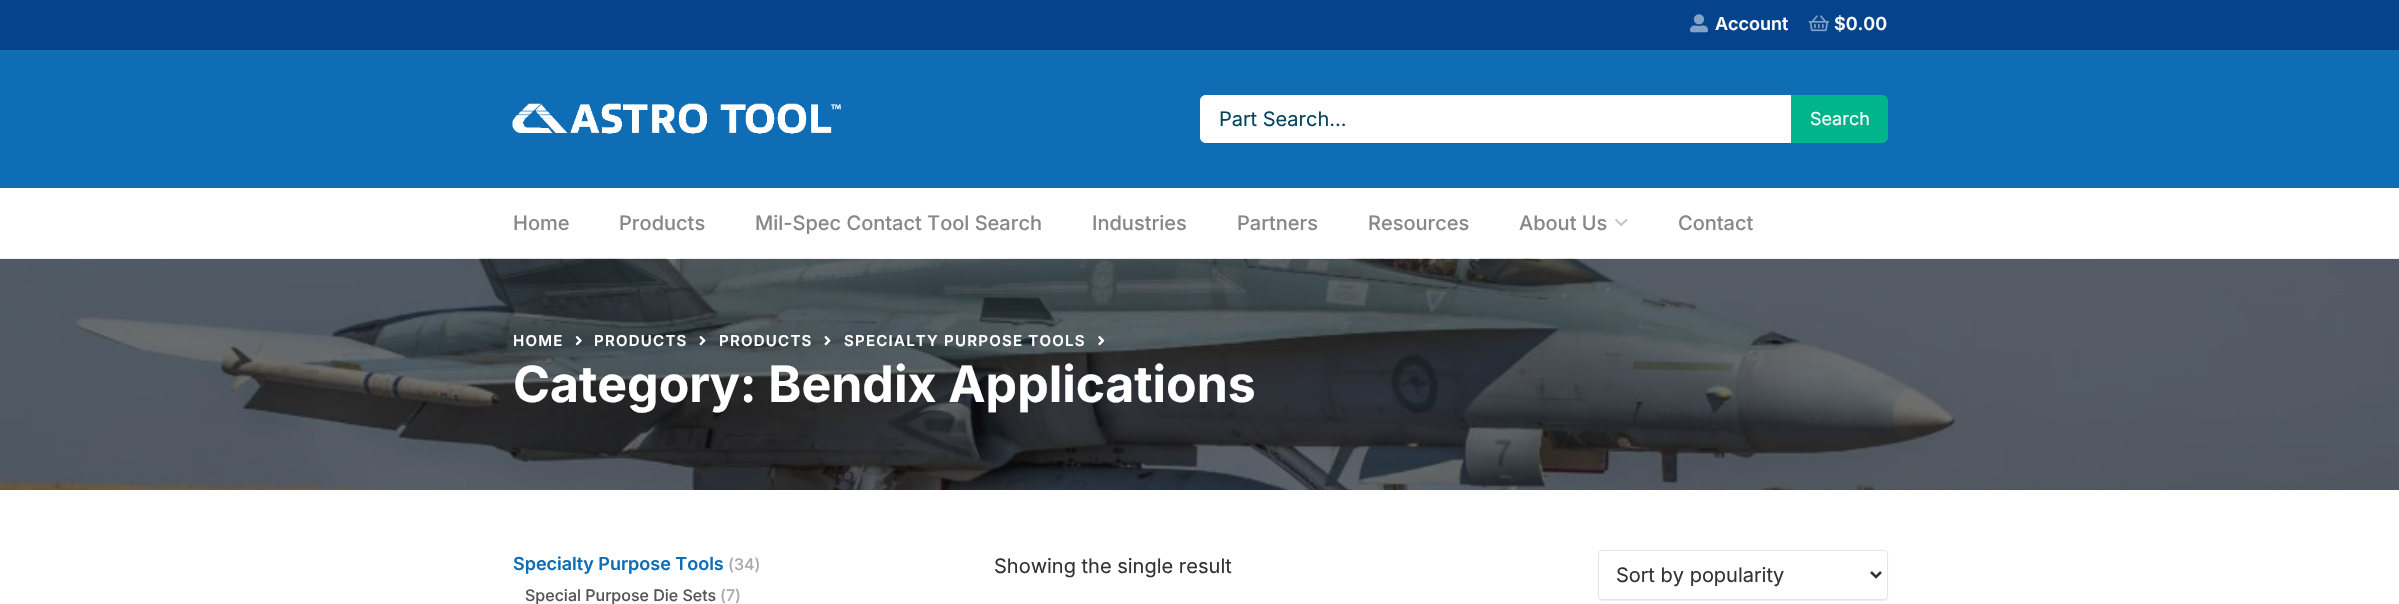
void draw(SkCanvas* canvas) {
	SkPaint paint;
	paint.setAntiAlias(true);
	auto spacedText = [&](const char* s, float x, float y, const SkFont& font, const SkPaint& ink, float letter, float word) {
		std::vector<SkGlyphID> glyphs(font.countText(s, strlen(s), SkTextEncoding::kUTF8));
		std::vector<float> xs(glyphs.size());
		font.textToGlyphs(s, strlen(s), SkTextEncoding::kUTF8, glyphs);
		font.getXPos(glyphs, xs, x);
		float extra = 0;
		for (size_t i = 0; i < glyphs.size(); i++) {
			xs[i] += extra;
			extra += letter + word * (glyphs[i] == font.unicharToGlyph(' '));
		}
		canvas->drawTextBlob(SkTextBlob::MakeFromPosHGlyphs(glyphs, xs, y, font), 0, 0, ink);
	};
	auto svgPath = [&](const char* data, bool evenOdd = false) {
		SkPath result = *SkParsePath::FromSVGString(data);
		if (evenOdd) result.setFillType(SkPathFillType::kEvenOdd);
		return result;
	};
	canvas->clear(0xffffffff);
	paint.setColor(0xff05448c);
	canvas->drawRect(SkRect::MakeXYWH(0, 0, 2399, 50), paint);
	canvas->drawImageRect(SkImages::DeferredFromEncodedData(SkData::MakeFromFileName("img1.png")), SkRect::MakeXYWH(1690, 14, 18, 19), SkSamplingOptions());
	SkFont f1(fontMgr->matchFamilyStyle("Inter", SkFontStyle(600, SkFontStyle::kNormal_Width, SkFontStyle::kUpright_Slant)), 18);
	f1.setSubpixel(true);
	paint.setColor(0xffffffff);
	canvas->drawString("Account", 1715, 30, f1, paint);
	canvas->drawImageRect(SkImages::DeferredFromEncodedData(SkData::MakeFromFileName("img2.png")), SkRect::MakeXYWH(1808, 15, 21, 17), SkSamplingOptions());
	canvas->drawString("$0.00", 1834, 30, f1, paint);
	paint.setColor(0xff0e6db5);
	canvas->drawRect(SkRect::MakeXYWH(0, 50, 2399, 138), paint);
	canvas->drawImageRect(SkImages::DeferredFromEncodedData(SkData::MakeFromFileName("img3.png")), SkRect::MakeXYWH(512, 103, 329, 31), SkSamplingOptions());
	paint.setColor(0x12000000);
	paint.setMaskFilter(SkMaskFilter::MakeBlur(kNormal_SkBlurStyle, 0.5));
	canvas->drawRoundRect(SkRect::MakeXYWH(1200, 96, 591, 48), 6, 6, paint);
	paint.setMaskFilter(nullptr);
	paint.setColor(0xffffffff);
	canvas->drawPath(svgPath("M1206 95H1791V143H1206C1202.5 143 1200 140.5 1200 137V101C1200 97.5 1202.5 95 1206 95Z"), paint);
	SkFont f2(fontMgr->matchFamilyStyle("Inter", SkFontStyle::Normal()), 20);
	f2.setSubpixel(true);
	paint.setColor(0xff06455b);
	canvas->drawString("Part Search...", 1219, 126, f2, paint);
	paint.setColor(0xff00b58a);
	canvas->drawPath(svgPath("M1791 95H1882C1885.5 95 1888 97.5 1888 101V137C1888 140.5 1885.5 143 1882 143H1791Z"), paint);
	SkFont f3(fontMgr->matchFamilyStyle("Inter", SkFontStyle::Normal()), 18);
	f3.setSubpixel(true);
	paint.setColor(0xffffffff);
	canvas->drawString("Search", 1810, 125, f3, paint);
	SkFont f4(fontMgr->matchFamilyStyle("Inter", SkFontStyle(500, SkFontStyle::kNormal_Width, SkFontStyle::kUpright_Slant)), 20);
	f4.setSubpixel(true);
	paint.setColor(0xff888888);
	canvas->drawString("Home", 513, 230, f4, paint);
	canvas->drawString("Products", 619, 230, f4, paint);
	canvas->drawString("Mil-Spec Contact Tool Search", 755, 230, f4, paint);
	canvas->drawString("Industries", 1092, 230, f4, paint);
	canvas->drawString("Partners", 1237, 230, f4, paint);
	canvas->drawString("Resources", 1368, 230, f4, paint);
	canvas->drawString("About Us", 1519, 230, f4, paint);
	canvas->drawImageRect(SkImages::DeferredFromEncodedData(SkData::MakeFromFileName("img4.png")), SkRect::MakeXYWH(1615, 218, 13, 9), SkSamplingOptions());
	canvas->drawString("Contact", 1678, 230, f4, paint);
	canvas->drawImageRect(SkImages::DeferredFromEncodedData(SkData::MakeFromFileName("img5.png")), SkRect::MakeXYWH(0, 258, 2399, 232), SkSamplingOptions());
	SkFont f5(fontMgr->matchFamilyStyle("Inter", SkFontStyle(600, SkFontStyle::kNormal_Width, SkFontStyle::kUpright_Slant)), 15);
	f5.setSubpixel(true);
	paint.setColor(0xffffffff);
	spacedText("HOME", 513, 346, f5, paint, 1.25, 0);
	canvas->drawImageRect(SkImages::DeferredFromEncodedData(SkData::MakeFromFileName("img6.png")), SkRect::MakeXYWH(575, 336, 7, 10), SkSamplingOptions());
	spacedText("PRODUCTS", 594, 346, f5, paint, 1.25, 0);
	canvas->drawImageRect(SkImages::DeferredFromEncodedData(SkData::MakeFromFileName("img7.png")), SkRect::MakeXYWH(699, 336, 7, 10), SkSamplingOptions());
	spacedText("PRODUCTS", 719, 346, f5, paint, 1.25, 0);
	canvas->drawImageRect(SkImages::DeferredFromEncodedData(SkData::MakeFromFileName("img8.png")), SkRect::MakeXYWH(824, 336, 7, 10), SkSamplingOptions());
	spacedText("SPECIALTY PURPOSE TOOLS", 844, 346, f5, paint, 1.25, 0);
	canvas->drawImageRect(SkImages::DeferredFromEncodedData(SkData::MakeFromFileName("img9.png")), SkRect::MakeXYWH(1098, 336, 7, 10), SkSamplingOptions());
	SkFont f6(fontMgr->matchFamilyStyle("Inter", SkFontStyle::Bold()), 50);
	f6.setSubpixel(true);
	canvas->drawString("Category: Bendix Applications", 513, 402, f6, paint);
	paint.setColor(0xff0e6db5);
	canvas->drawString("Specialty Purpose Tools", 513, 570, f1, paint);
	SkFont f7(fontMgr->matchFamilyStyle("Inter", SkFontStyle(500, SkFontStyle::kNormal_Width, SkFontStyle::kUpright_Slant)), 16);
	f7.setSubpixel(true);
	paint.setColor(0xffaaaaaa);
	canvas->drawString("(34)", 728, 570, f7, paint);
	paint.setColor(0xff555555);
	canvas->drawString("Special Purpose Die Sets", 525, 601, f7, paint);
	paint.setColor(0xffaaaaaa);
	canvas->drawString("(7)", 720, 601, f7, paint);
	paint.setColor(0xff333333);
	canvas->drawString("Showing the single result", 994, 573, f2, paint);
	canvas->save();
	canvas->clipPath(svgPath("M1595 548H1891V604H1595ZM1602 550H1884C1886 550 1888 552 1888 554V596C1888 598 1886 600 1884 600H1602C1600 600 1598 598 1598 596V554C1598 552 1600 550 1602 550Z", true), true);
	paint.setColor(0x12000000);
	paint.setMaskFilter(SkMaskFilter::MakeBlur(kNormal_SkBlurStyle, 0.5));
	canvas->drawRoundRect(SkRect::MakeXYWH(1598, 551, 290, 50), 4, 4, paint);
	paint.setMaskFilter(nullptr);
	canvas->restore();
	paint.setStroke(true);
	paint.setStrokeWidth(1);
	paint.setColor(0xffe5e5e5);
	canvas->drawRoundRect(SkRect::MakeXYWH(1598.5, 550.5, 289, 49), 3.5, 3.5, paint);
	paint.setStrokeWidth(2.5);
	paint.setColor(0xff333333);
	canvas->drawPath(svgPath("M1871 572L1876 577L1881 572"), paint);
	paint.setStroke(false);
	canvas->drawString("Sort by popularity", 1616, 582, f2, paint);
}
